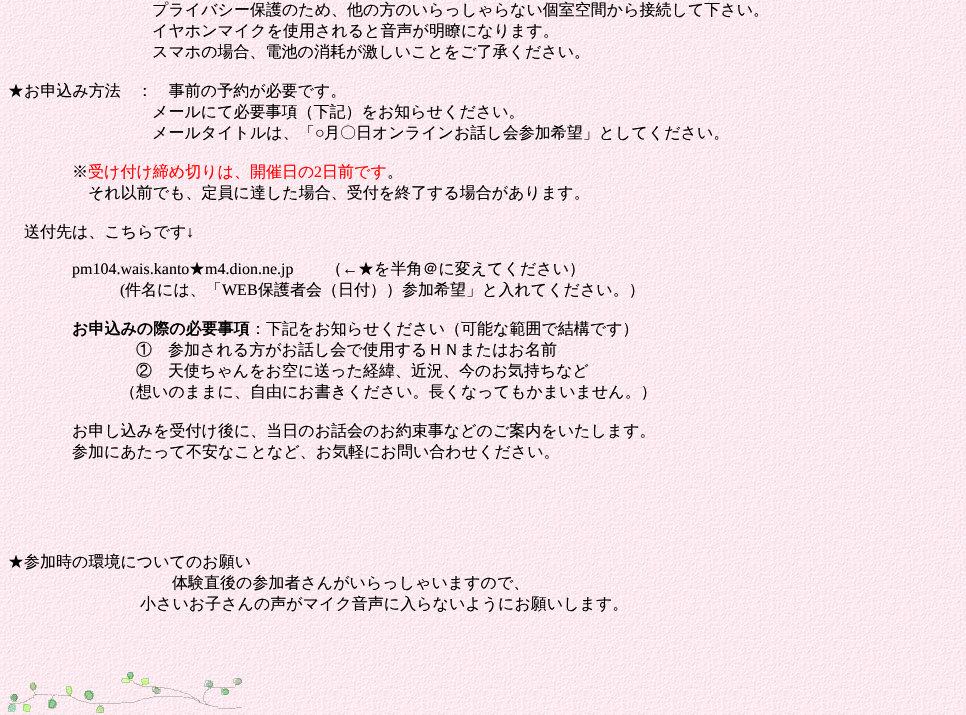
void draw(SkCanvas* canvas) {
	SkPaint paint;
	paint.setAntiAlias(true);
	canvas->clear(0xffffffff);
	canvas->drawImageRect(SkImages::DeferredFromEncodedData(SkData::MakeFromFileName("img1.png")), SkRect::MakeXYWH(0, 0, 966, 715), SkSamplingOptions());
	SkFont f1(fontMgr->matchFamilyStyle("WenQuanYi Zen Hei", SkFontStyle(500, SkFontStyle::kNormal_Width, SkFontStyle::kUpright_Slant)), 16);
	f1.setSubpixel(true);
	paint.setColor(0xff000000);
	canvas->drawString("プライバシー保護のため、他の方のいらっしゃらない個室空間から接続して下さい。", 152, 15, f1, paint);
	canvas->drawString("イヤホンマイクを使用されると音声が明瞭になります。", 152, 36, f1, paint);
	canvas->drawString("スマホの場合、電池の消耗が激しいことをご了承ください。", 152, 57, f1, paint);
	canvas->drawString("★お申込み方法　：　事前の予約が必要です。", 8, 96, f1, paint);
	canvas->drawString("メールにて必要事項（下記）をお知らせください。", 152, 117, f1, paint);
	canvas->drawString("メールタイトルは、「", 152, 138, f1, paint);
	SkFont f2(fontMgr->matchFamilyStyle("Liberation Serif", SkFontStyle::Normal()), 16);
	f2.setSubpixel(true);
	canvas->drawString("○", 315, 138, f2, paint);
	canvas->drawString("月〇日オンラインお話し会参加希望」としてください。", 324, 138, f1, paint);
	canvas->drawString("※", 72, 177, f1, paint);
	paint.setColor(0xffff0000);
	canvas->drawString("受け付け締め切りは、開催日の", 88, 177, f1, paint);
	canvas->drawString("2", 314, 177, f2, paint);
	canvas->drawString("日前です", 322, 177, f1, paint);
	paint.setColor(0xff000000);
	canvas->drawString("。", 387, 177, f1, paint);
	canvas->drawString("それ以前でも、定員に達した場合、受付を終了する場合があります。", 88, 198, f1, paint);
	canvas->drawString("送付先は、こちらです", 24, 237, f1, paint);
	canvas->drawString("↓", 186, 237, f2, paint);
	canvas->drawString("pm104.wais.kanto", 72, 274, f2, paint);
	canvas->drawString("★", 189, 274, f1, paint);
	canvas->drawString("m4.dion.ne.jp", 205, 274, f2, paint);
	canvas->drawString("（", 326, 274, f1, paint);
	canvas->drawString("←", 342, 274, f2, paint);
	canvas->drawString("★を半角＠に変えてください）", 358, 274, f1, paint);
	canvas->drawString("(", 120, 295, f2, paint);
	canvas->drawString("件名には、「", 125, 295, f1, paint);
	canvas->drawString("WEB", 222, 295, f2, paint);
	canvas->drawString("保護者会（日付））参加希望」と入れてください。）", 258, 295, f1, paint);
	SkFont f3(fontMgr->matchFamilyStyle("WenQuanYi Zen Hei", SkFontStyle::Bold()), 16);
	f3.setSubpixel(true);
	canvas->drawString("お申込みの際の必要事項", 72, 334, f3, paint);
	canvas->drawString("：下記をお知らせください（可能な範囲で結構です）", 250, 334, f1, paint);
	canvas->drawString("①　参加される方がお話し会で使用するＨＮまたはお名前", 136, 355, f1, paint);
	canvas->drawString("②　天使ちゃんをお空に送った経緯、近況、今のお気持ちなど", 136, 376, f1, paint);
	canvas->drawString("（想いのままに、自由にお書きください。長くなってもかまいません。）", 120, 397, f1, paint);
	canvas->drawString("お申し込みを受付け後に、当日のお話会のお約束事などのご案内をいたします。", 72, 436, f1, paint);
	canvas->drawString("参加にあたって不安なことなど、お気軽にお問い合わせください。", 72, 457, f1, paint);
	canvas->drawString("★参加時の環境についてのお願い", 8, 567, f1, paint);
	canvas->drawString("体験直後の参加者さんがいらっしゃいますので、", 172, 588, f1, paint);
	canvas->drawString("小さいお子さんの声がマイク音声に入らないようにお願いします。", 140, 609, f1, paint);
	canvas->drawImageRect(SkImages::DeferredFromEncodedData(SkData::MakeFromFileName("img2.png")), SkRect::MakeXYWH(8, 672, 234, 42), SkSamplingOptions());
}
